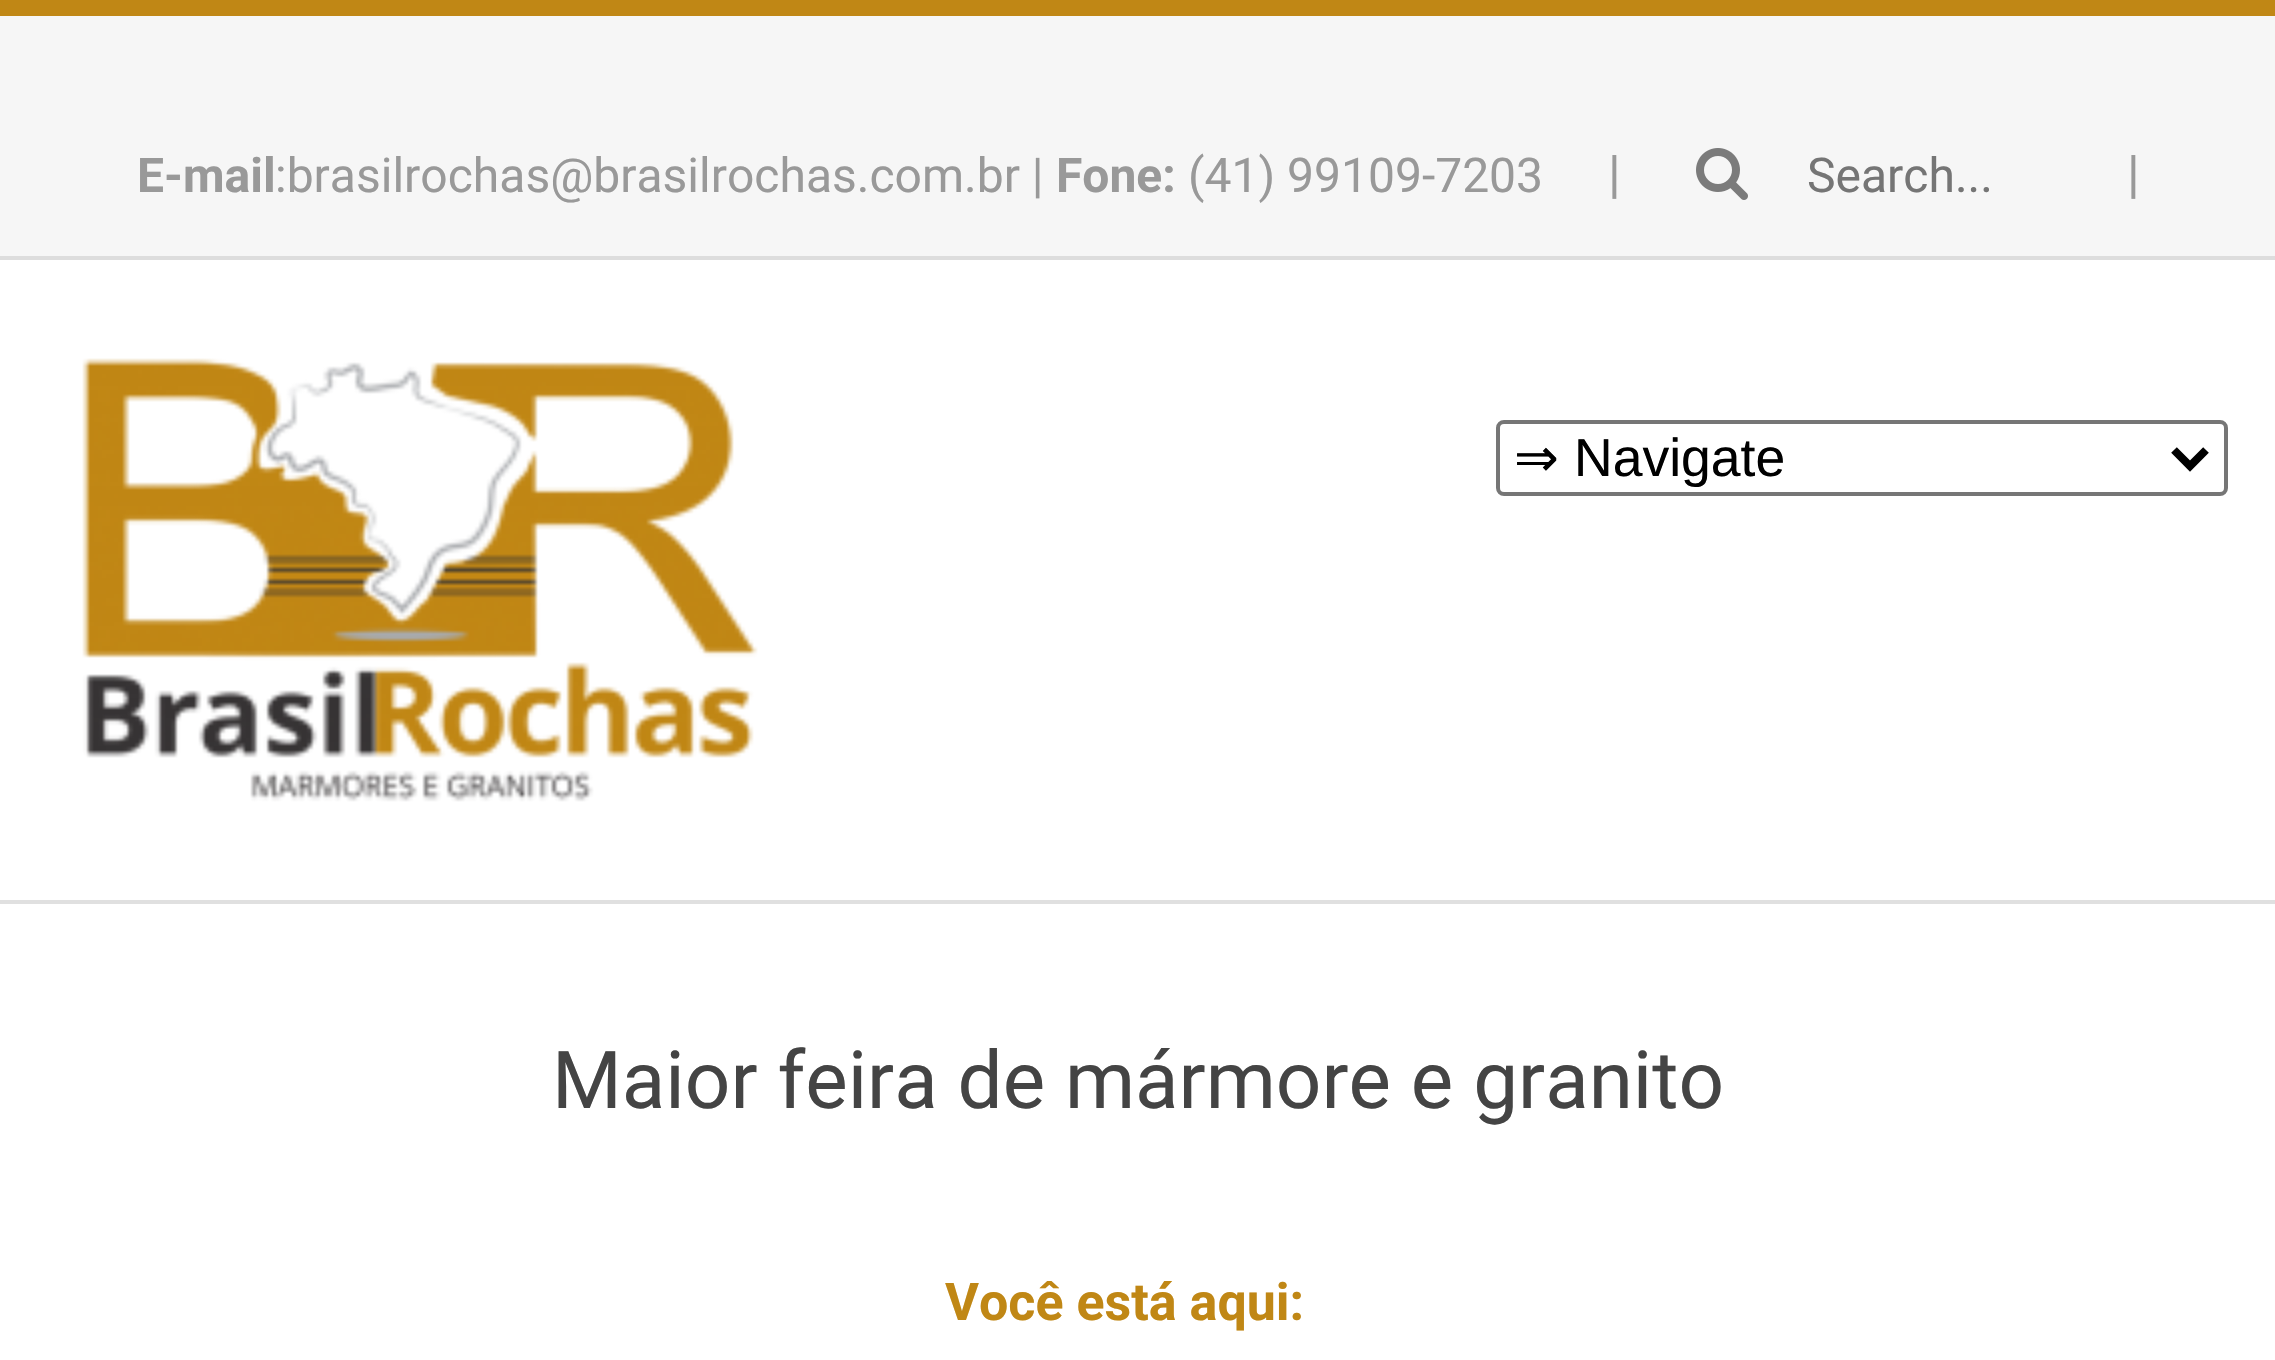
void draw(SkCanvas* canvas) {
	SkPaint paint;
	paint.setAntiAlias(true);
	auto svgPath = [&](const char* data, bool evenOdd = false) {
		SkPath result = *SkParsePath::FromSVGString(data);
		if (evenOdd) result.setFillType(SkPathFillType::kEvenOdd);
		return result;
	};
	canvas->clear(0xffffffff);
	paint.setColor(0xfff6f6f6);
	canvas->drawRect(SkRect::MakeXYWH(0, 16, 2275, 240), paint);
	paint.setColor(0xffc08715);
	canvas->drawRect(SkRect::MakeXYWH(0, 0, 2275, 16), paint);
	paint.setColor(0xffdddddd);
	canvas->drawRect(SkRect::MakeXYWH(0, 256, 2275, 4), paint);
	SkFont f1(fontMgr->matchFamilyStyle("Roboto", SkFontStyle::Bold()), 48);
	f1.setSubpixel(true);
	paint.setColor(0xff999999);
	canvas->drawString("E-mail", 137, 192, f1, paint);
	SkFont f2(fontMgr->matchFamilyStyle("Roboto", SkFontStyle::Normal()), 48);
	f2.setSubpixel(true);
	canvas->drawString(":brasilrochas@brasilrochas.com.br |", 275, 192, f2, paint);
	canvas->drawString("Fone:", 1056, 192, f1, paint);
	canvas->drawString("(41) 99109-7203", 1188, 192, f2, paint);
	SkFont f3(fontMgr->matchFamilyStyle("Roboto", SkFontStyle::Normal()), 52);
	f3.setSubpixel(true);
	canvas->drawString("|", 1608, 192, f3, paint);
	canvas->drawImageRect(SkImages::DeferredFromEncodedData(SkData::MakeFromFileName("img1.png")), SkRect::MakeXYWH(1696, 148, 52, 52), SkSamplingOptions());
	paint.setColor(0xff757575);
	canvas->drawString("Search...", 1807, 192, f2, paint);
	paint.setColor(0xff999999);
	canvas->drawString("|", 2127, 192, f3, paint);
	canvas->drawImageRect(SkImages::DeferredFromEncodedData(SkData::MakeFromFileName("img2.png")), SkRect::MakeXYWH(82, 358, 676, 444), SkSamplingOptions());
	paint.setStroke(true);
	paint.setStrokeWidth(4);
	paint.setColor(0xff767676);
	canvas->drawRoundRect(SkRect::MakeXYWH(1498, 422, 728, 72), 6, 6, paint);
	paint.setStrokeWidth(8);
	paint.setColor(0xff000000);
	canvas->drawPath(svgPath("M2174 450L2190 466L2206 450"), paint);
	SkFont f4(fontMgr->matchFamilyStyle("DejaVu Sans", SkFontStyle::Normal()), 53.5);
	f4.setSubpixel(true);
	paint.setStroke(false);
	canvas->drawString("⇒", 1514, 476, f4, paint);
	SkFont f5(fontMgr->matchFamilyStyle("Liberation Sans", SkFontStyle::Normal()), 53.5);
	f5.setSubpixel(true);
	canvas->drawString("Navigate", 1574, 476, f5, paint);
	paint.setColor(0xffe0e0e0);
	canvas->drawRect(SkRect::MakeXYWH(0, 900, 2275, 4), paint);
	SkFont f6(fontMgr->matchFamilyStyle("Roboto", SkFontStyle::Normal()), 80);
	f6.setSubpixel(true);
	paint.setColor(0xff444444);
	canvas->drawString("Maior feira de mármore e granito", 552, 1108, f6, paint);
	SkFont f7(fontMgr->matchFamilyStyle("Roboto", SkFontStyle::Bold()), 52);
	f7.setSubpixel(true);
	paint.setColor(0xffc08715);
	canvas->drawString("Você está aqui:", 945, 1320, f7, paint);
}
